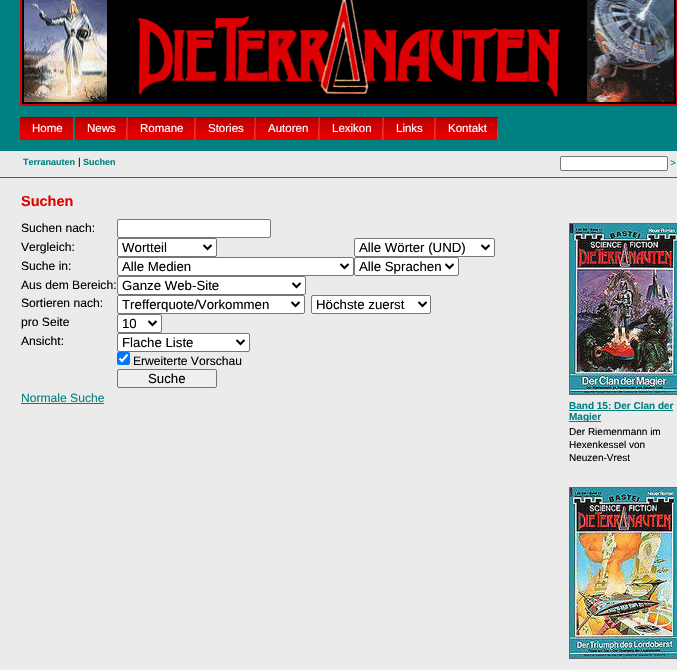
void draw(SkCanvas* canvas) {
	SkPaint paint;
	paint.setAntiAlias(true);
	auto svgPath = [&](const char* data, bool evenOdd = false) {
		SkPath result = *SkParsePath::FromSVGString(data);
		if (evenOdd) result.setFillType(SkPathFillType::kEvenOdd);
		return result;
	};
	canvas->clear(0xffffffff);
	canvas->drawImageRect(SkImages::DeferredFromEncodedData(SkData::MakeFromFileName("img1.png")), SkRect::MakeXYWH(0, 0, 677, 117), SkSamplingOptions());
	paint.setColor(0xff008080);
	canvas->drawRect(SkRect::MakeXYWH(0, 117, 677, 34), paint);
	canvas->drawImageRect(SkImages::DeferredFromEncodedData(SkData::MakeFromFileName("img2.png")), SkRect::MakeXYWH(20, 117, 55, 23), SkSamplingOptions());
	SkFont f1(fontMgr->matchFamilyStyle("Liberation Sans", SkFontStyle::Normal()), 11.5);
	f1.setSubpixel(true);
	paint.setColor(0xffffffff);
	canvas->drawString("Home", 32, 132, f1, paint);
	canvas->drawImageRect(SkImages::DeferredFromEncodedData(SkData::MakeFromFileName("img3.png")), SkRect::MakeXYWH(75, 117, 53, 23), SkSamplingOptions());
	canvas->drawString("News", 87, 132, f1, paint);
	canvas->drawImageRect(SkImages::DeferredFromEncodedData(SkData::MakeFromFileName("img4.png")), SkRect::MakeXYWH(128, 117, 67, 23), SkSamplingOptions());
	canvas->drawString("Romane", 140, 132, f1, paint);
	canvas->drawImageRect(SkImages::DeferredFromEncodedData(SkData::MakeFromFileName("img5.png")), SkRect::MakeXYWH(196, 117, 60, 23), SkSamplingOptions());
	canvas->drawString("Stories", 208, 132, f1, paint);
	canvas->drawImageRect(SkImages::DeferredFromEncodedData(SkData::MakeFromFileName("img6.png")), SkRect::MakeXYWH(256, 117, 64, 23), SkSamplingOptions());
	canvas->drawString("Autoren", 268, 132, f1, paint);
	canvas->drawImageRect(SkImages::DeferredFromEncodedData(SkData::MakeFromFileName("img7.png")), SkRect::MakeXYWH(320, 117, 63, 23), SkSamplingOptions());
	canvas->drawString("Lexikon", 332, 132, f1, paint);
	canvas->drawImageRect(SkImages::DeferredFromEncodedData(SkData::MakeFromFileName("img8.png")), SkRect::MakeXYWH(384, 117, 51, 23), SkSamplingOptions());
	canvas->drawString("Links", 396, 132, f1, paint);
	canvas->drawImageRect(SkImages::DeferredFromEncodedData(SkData::MakeFromFileName("img9.png")), SkRect::MakeXYWH(436, 117, 63, 23), SkSamplingOptions());
	canvas->drawString("Kontakt", 448, 132, f1, paint);
	paint.setColor(0xffebebeb);
	canvas->drawRect(SkRect::MakeXYWH(0, 151, 677, 519), paint);
	paint.setColor(0xff008080);
	canvas->drawRect(SkRect::MakeXYWH(0, 177, 677, 1), paint);
	SkFont f2(fontMgr->matchFamilyStyle("Liberation Sans", SkFontStyle::Bold()), 9);
	f2.setSubpixel(true);
	canvas->drawString("Terranauten", 23, 165, f2, paint);
	SkFont f3(fontMgr->matchFamilyStyle("Liberation Sans", SkFontStyle::Normal()), 10);
	f3.setSubpixel(true);
	paint.setColor(0xff000000);
	canvas->drawString("|", 78, 165, f3, paint);
	paint.setColor(0xff008080);
	canvas->drawString("Suchen", 83, 165, f2, paint);
	paint.setColor(0xffffffff);
	canvas->drawRoundRect(SkRect::MakeXYWH(560.5, 156.5, 107, 14), 1.5, 1.5, paint);
	paint.setStroke(true);
	paint.setStrokeWidth(1);
	paint.setColor(0xff767676);
	canvas->drawRoundRect(SkRect::MakeXYWH(560.5, 156.5, 107, 14), 1.5, 1.5, paint);
	paint.setStroke(false);
	paint.setColor(0xff008080);
	canvas->drawString(">", 670, 166, f3, paint);
	SkFont f4(fontMgr->matchFamilyStyle("Liberation Sans", SkFontStyle::Bold()), 14.5);
	f4.setSubpixel(true);
	paint.setColor(0xffe50000);
	canvas->drawString("Suchen", 21, 206, f4, paint);
	SkFont f5(fontMgr->matchFamilyStyle("Liberation Sans", SkFontStyle::Normal()), 12.1);
	f5.setSubpixel(true);
	paint.setColor(0xff000000);
	canvas->drawString("Suchen nach:", 21, 232, f5, paint);
	paint.setColor(0xffffffff);
	canvas->drawRoundRect(SkRect::MakeXYWH(117.5, 219.5, 153, 18), 1.5, 1.5, paint);
	paint.setStroke(true);
	paint.setColor(0xff767676);
	canvas->drawRoundRect(SkRect::MakeXYWH(117.5, 219.5, 153, 18), 1.5, 1.5, paint);
	paint.setStroke(false);
	paint.setColor(0xff000000);
	canvas->drawString("Vergleich:", 21, 251, f5, paint);
	paint.setColor(0xffffffff);
	canvas->drawRoundRect(SkRect::MakeXYWH(117.5, 238.5, 99, 18), 1.5, 1.5, paint);
	paint.setStroke(true);
	paint.setColor(0xff767676);
	canvas->drawRoundRect(SkRect::MakeXYWH(117.5, 238.5, 99, 18), 1.5, 1.5, paint);
	paint.setStrokeWidth(2);
	paint.setColor(0xff000000);
	canvas->drawPath(svgPath("M203.5 245L207.5 249L211.5 245"), paint);
	SkFont f6(fontMgr->matchFamilyStyle("Liberation Sans", SkFontStyle::Normal()), 13.25);
	f6.setSubpixel(true);
	paint.setStroke(false);
	canvas->drawString("Wortteil", 122, 252, f6, paint);
	paint.setColor(0xffffffff);
	canvas->drawRoundRect(SkRect::MakeXYWH(354.5, 238.5, 140, 18), 1.5, 1.5, paint);
	paint.setStroke(true);
	paint.setStrokeWidth(1);
	paint.setColor(0xff767676);
	canvas->drawRoundRect(SkRect::MakeXYWH(354.5, 238.5, 140, 18), 1.5, 1.5, paint);
	paint.setStrokeWidth(2);
	paint.setColor(0xff000000);
	canvas->drawPath(svgPath("M481.5 245L485.5 249L489.5 245"), paint);
	paint.setStroke(false);
	canvas->drawString("Alle Wörter (UND)", 359, 252, f6, paint);
	canvas->drawString("Suche in:", 21, 270, f5, paint);
	paint.setColor(0xffffffff);
	canvas->drawRoundRect(SkRect::MakeXYWH(117.5, 257.5, 236, 18), 1.5, 1.5, paint);
	paint.setStroke(true);
	paint.setStrokeWidth(1);
	paint.setColor(0xff767676);
	canvas->drawRoundRect(SkRect::MakeXYWH(117.5, 257.5, 236, 18), 1.5, 1.5, paint);
	paint.setStrokeWidth(2);
	paint.setColor(0xff000000);
	canvas->drawPath(svgPath("M340.5 264L344.5 268L348.5 264"), paint);
	paint.setStroke(false);
	canvas->drawString("Alle Medien", 122, 271, f6, paint);
	paint.setColor(0xffffffff);
	canvas->drawRoundRect(SkRect::MakeXYWH(354.5, 257.5, 104, 18), 1.5, 1.5, paint);
	paint.setStroke(true);
	paint.setStrokeWidth(1);
	paint.setColor(0xff767676);
	canvas->drawRoundRect(SkRect::MakeXYWH(354.5, 257.5, 104, 18), 1.5, 1.5, paint);
	paint.setStrokeWidth(2);
	paint.setColor(0xff000000);
	canvas->drawPath(svgPath("M445.5 264L449.5 268L453.5 264"), paint);
	paint.setStroke(false);
	canvas->drawString("Alle Sprachen", 359, 271, f6, paint);
	canvas->drawString("Aus dem Bereich:", 21, 289, f5, paint);
	paint.setColor(0xffffffff);
	canvas->drawRoundRect(SkRect::MakeXYWH(117.5, 276.5, 188, 18), 1.5, 1.5, paint);
	paint.setStroke(true);
	paint.setStrokeWidth(1);
	paint.setColor(0xff767676);
	canvas->drawRoundRect(SkRect::MakeXYWH(117.5, 276.5, 188, 18), 1.5, 1.5, paint);
	paint.setStrokeWidth(2);
	paint.setColor(0xff000000);
	canvas->drawPath(svgPath("M292.5 283L296.5 287L300.5 283"), paint);
	paint.setStroke(false);
	canvas->drawString("Ganze Web-Site", 122, 290, f6, paint);
	canvas->drawString("Sortieren nach:", 21, 307, f5, paint);
	paint.setColor(0xffffffff);
	canvas->drawRoundRect(SkRect::MakeXYWH(117.5, 295.5, 187, 18), 1.5, 1.5, paint);
	paint.setStroke(true);
	paint.setStrokeWidth(1);
	paint.setColor(0xff767676);
	canvas->drawRoundRect(SkRect::MakeXYWH(117.5, 295.5, 187, 18), 1.5, 1.5, paint);
	paint.setStrokeWidth(2);
	paint.setColor(0xff000000);
	canvas->drawPath(svgPath("M291.5 302L295.5 306L299.5 302"), paint);
	paint.setStroke(false);
	canvas->drawString("Trefferquote/Vorkommen", 122, 309, f6, paint);
	paint.setColor(0xffffffff);
	canvas->drawRoundRect(SkRect::MakeXYWH(311.5, 295.5, 119, 18), 1.5, 1.5, paint);
	paint.setStroke(true);
	paint.setStrokeWidth(1);
	paint.setColor(0xff767676);
	canvas->drawRoundRect(SkRect::MakeXYWH(311.5, 295.5, 119, 18), 1.5, 1.5, paint);
	paint.setStrokeWidth(2);
	paint.setColor(0xff000000);
	canvas->drawPath(svgPath("M418.5 302L422.5 306L426.5 302"), paint);
	paint.setStroke(false);
	canvas->drawString("Höchste zuerst", 316, 309, f6, paint);
	canvas->drawString("pro Seite", 21, 326, f5, paint);
	paint.setColor(0xffffffff);
	canvas->drawRoundRect(SkRect::MakeXYWH(117.5, 314.5, 44, 18), 1.5, 1.5, paint);
	paint.setStroke(true);
	paint.setStrokeWidth(1);
	paint.setColor(0xff767676);
	canvas->drawRoundRect(SkRect::MakeXYWH(117.5, 314.5, 44, 18), 1.5, 1.5, paint);
	paint.setStrokeWidth(2);
	paint.setColor(0xff000000);
	canvas->drawPath(svgPath("M148.5 321L152.5 325L156.5 321"), paint);
	paint.setStroke(false);
	canvas->drawString("10", 122, 328, f6, paint);
	canvas->drawString("Ansicht:", 21, 345, f5, paint);
	paint.setColor(0xffffffff);
	canvas->drawRoundRect(SkRect::MakeXYWH(117.5, 333.5, 132, 18), 1.5, 1.5, paint);
	paint.setStroke(true);
	paint.setStrokeWidth(1);
	paint.setColor(0xff767676);
	canvas->drawRoundRect(SkRect::MakeXYWH(117.5, 333.5, 132, 18), 1.5, 1.5, paint);
	paint.setStrokeWidth(2);
	paint.setColor(0xff000000);
	canvas->drawPath(svgPath("M236.5 340L240.5 344L244.5 340"), paint);
	paint.setStroke(false);
	canvas->drawString("Flache Liste", 122, 347, f6, paint);
	paint.setColor(0xff0075ff);
	canvas->drawRoundRect(SkRect::MakeXYWH(117, 352, 13, 13), 2, 2, paint);
	paint.setStroke(true);
	paint.setStrokeWidth(2.1);
	paint.setColor(0xffffffff);
	canvas->drawPath(svgPath("M119.5 358.5L122 361L127.5 354.5"), paint);
	paint.setStroke(false);
	paint.setColor(0xff000000);
	canvas->drawString("Erweiterte Vorschau", 133, 365, f5, paint);
	paint.setColor(0xffefefef);
	canvas->drawRoundRect(SkRect::MakeXYWH(117.5, 369.5, 99, 18), 1.5, 1.5, paint);
	paint.setStroke(true);
	paint.setStrokeWidth(1);
	paint.setColor(0xff767676);
	canvas->drawRoundRect(SkRect::MakeXYWH(117.5, 369.5, 99, 18), 1.5, 1.5, paint);
	paint.setStroke(false);
	paint.setColor(0xff000000);
	canvas->drawString("Suche", 148, 383, f6, paint);
	paint.setColor(0xff008080);
	canvas->drawString("Normale Suche", 21, 402, f5, paint);
	canvas->drawRect(SkRect::MakeXYWH(21, 403, 83, 1), paint);
	paint.setStroke(true);
	paint.setColor(0xff666666);
	canvas->drawRect(SkRect::MakeXYWH(569.5, 223.5, 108, 171), paint);
	canvas->drawImageRect(SkImages::DeferredFromEncodedData(SkData::MakeFromFileName("img10.png")), SkRect::MakeXYWH(570, 224, 107, 170), SkSamplingOptions());
	SkFont f7(fontMgr->matchFamilyStyle("Liberation Sans", SkFontStyle::Bold()), 10);
	f7.setSubpixel(true);
	paint.setStroke(false);
	paint.setColor(0xff008080);
	canvas->drawString("Band 15: Der Clan der", 569, 409, f7, paint);
	canvas->drawRect(SkRect::MakeXYWH(569, 410, 104, 1), paint);
	canvas->drawRect(SkRect::MakeXYWH(569, 421, 32, 1), paint);
	canvas->drawString("Magier", 569, 420, f7, paint);
	paint.setColor(0xff000000);
	canvas->drawString("Der Riemenmann im", 569, 435, f3, paint);
	canvas->drawString("Hexenkessel von", 569, 448, f3, paint);
	canvas->drawString("Neuzen-Vrest", 569, 461, f3, paint);
	paint.setStroke(true);
	paint.setColor(0xff666666);
	canvas->drawRect(SkRect::MakeXYWH(569.5, 487.5, 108, 171), paint);
	canvas->drawImageRect(SkImages::DeferredFromEncodedData(SkData::MakeFromFileName("img11.png")), SkRect::MakeXYWH(570, 488, 107, 170), SkSamplingOptions());
}
